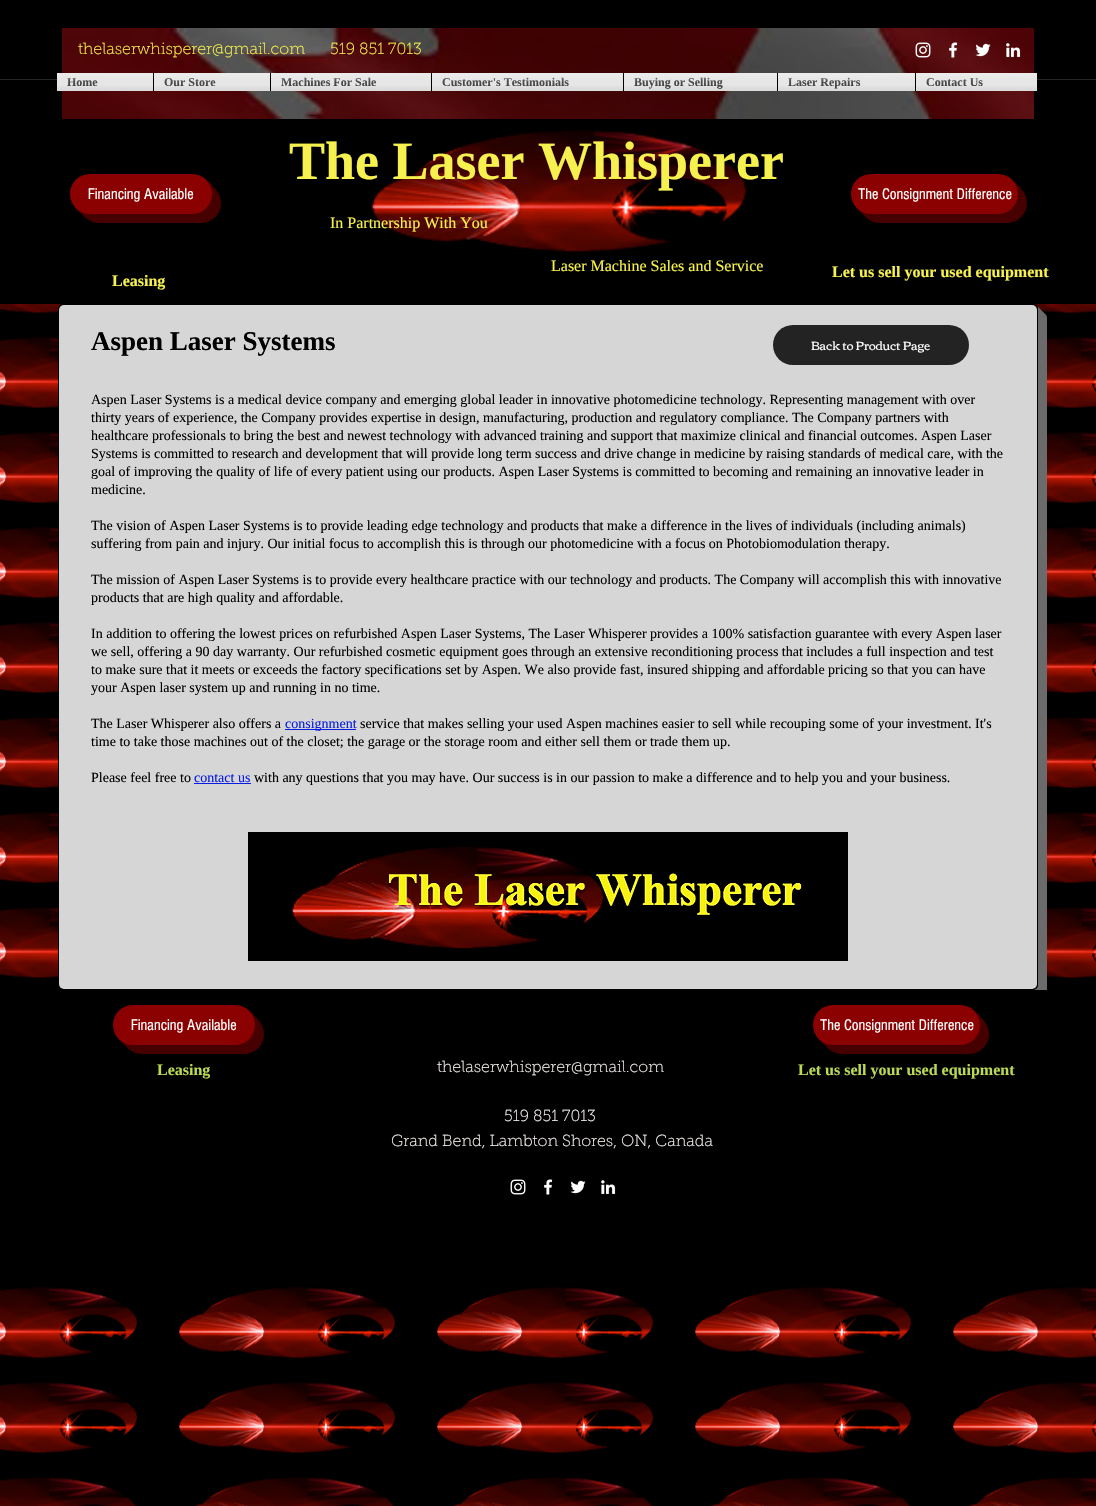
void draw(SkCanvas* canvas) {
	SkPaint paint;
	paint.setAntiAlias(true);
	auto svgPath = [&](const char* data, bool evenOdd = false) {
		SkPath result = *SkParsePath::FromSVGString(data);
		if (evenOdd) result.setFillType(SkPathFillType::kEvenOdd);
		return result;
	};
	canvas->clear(0xffffffff);
	paint.setColor(0xff000000);
	canvas->drawRect(SkRect::MakeXYWH(0, 0, 1096, 304), paint);
	canvas->drawImageRect(SkImages::DeferredFromEncodedData(SkData::MakeFromFileName("img1.png")), SkRect::MakeXYWH(62, 28, 972, 91), SkSamplingOptions());
	SkFont f1(fontMgr->matchFamilyStyle("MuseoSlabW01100", SkFontStyle(100, SkFontStyle::kNormal_Width, SkFontStyle::kUpright_Slant)), 16);
	f1.setSubpixel(true);
	paint.setColor(0xfff6f14f);
	canvas->drawString("thelaserwhisperer@gmail.com", 78, 54, f1, paint);
	canvas->drawString("519 851 7013", 330, 54, f1, paint);
	canvas->drawImageRect(SkImages::DeferredFromEncodedData(SkData::MakeFromFileName("img2.png")), SkRect::MakeXYWH(915, 42, 16, 16), SkSamplingOptions());
	canvas->drawImageRect(SkImages::DeferredFromEncodedData(SkData::MakeFromFileName("img3.png")), SkRect::MakeXYWH(949, 42, 9, 16), SkSamplingOptions());
	canvas->drawImageRect(SkImages::DeferredFromEncodedData(SkData::MakeFromFileName("img4.png")), SkRect::MakeXYWH(975, 43, 16, 14), SkSamplingOptions());
	canvas->drawImageRect(SkImages::DeferredFromEncodedData(SkData::MakeFromFileName("img5.png")), SkRect::MakeXYWH(1006, 43, 15, 15), SkSamplingOptions());
	paint.setColor(0x26f8f3f1);
	canvas->drawRect(SkRect::MakeXYWH(0, 79, 1096, 1), paint);
	paint.setColor(0xffffffff);
	canvas->drawRect(SkRect::MakeXYWH(57, 73, 96, 18), paint);
	SkFont f2(fontMgr->matchFamilyStyle("Liberation Serif", SkFontStyle::Bold()), 12);
	f2.setSubpixel(true);
	paint.setColor(0xff000000);
	canvas->drawString("Home", 67, 86, f2, paint);
	canvas->drawImageRect(SkImages::DeferredFromEncodedData(SkData::MakeFromFileName("img6.png")), SkRect::MakeXYWH(67, 78, 31, 9), SkSamplingOptions());
	canvas->drawImageRect(SkImages::DeferredFromEncodedData(SkData::MakeFromFileName("img7.png")), SkRect::MakeXYWH(57, 73, 96, 18), SkSamplingOptions());
	paint.setColor(0xffffffff);
	canvas->drawRect(SkRect::MakeXYWH(154, 73, 116, 18), paint);
	paint.setColor(0xff000000);
	canvas->drawRect(SkRect::MakeXYWH(153, 73, 1, 18), paint);
	canvas->drawString("Our Store", 164, 86, f2, paint);
	canvas->drawImageRect(SkImages::DeferredFromEncodedData(SkData::MakeFromFileName("img8.png")), SkRect::MakeXYWH(164, 78, 52, 9), SkSamplingOptions());
	canvas->drawImageRect(SkImages::DeferredFromEncodedData(SkData::MakeFromFileName("img9.png")), SkRect::MakeXYWH(154, 73, 116, 18), SkSamplingOptions());
	paint.setColor(0xffffffff);
	canvas->drawRect(SkRect::MakeXYWH(271, 73, 160, 18), paint);
	paint.setColor(0xff000000);
	canvas->drawRect(SkRect::MakeXYWH(270, 73, 1, 18), paint);
	canvas->drawString("Machines For Sale", 281, 86, f2, paint);
	canvas->drawImageRect(SkImages::DeferredFromEncodedData(SkData::MakeFromFileName("img10.png")), SkRect::MakeXYWH(281, 77, 95, 10), SkSamplingOptions());
	canvas->drawImageRect(SkImages::DeferredFromEncodedData(SkData::MakeFromFileName("img11.png")), SkRect::MakeXYWH(271, 73, 160, 18), SkSamplingOptions());
	paint.setColor(0xffffffff);
	canvas->drawRect(SkRect::MakeXYWH(432, 73, 191, 18), paint);
	paint.setColor(0xff000000);
	canvas->drawRect(SkRect::MakeXYWH(431, 73, 1, 18), paint);
	canvas->drawString("Customer's Testimonials", 442, 86, f2, paint);
	canvas->drawImageRect(SkImages::DeferredFromEncodedData(SkData::MakeFromFileName("img12.png")), SkRect::MakeXYWH(442, 77, 127, 10), SkSamplingOptions());
	canvas->drawImageRect(SkImages::DeferredFromEncodedData(SkData::MakeFromFileName("img13.png")), SkRect::MakeXYWH(432, 73, 191, 18), SkSamplingOptions());
	paint.setColor(0xffffffff);
	canvas->drawRect(SkRect::MakeXYWH(624, 73, 153, 18), paint);
	paint.setColor(0xff000000);
	canvas->drawRect(SkRect::MakeXYWH(623, 73, 1, 18), paint);
	canvas->drawString("Buying or Selling", 634, 86, f2, paint);
	canvas->drawImageRect(SkImages::DeferredFromEncodedData(SkData::MakeFromFileName("img14.png")), SkRect::MakeXYWH(634, 77, 89, 12), SkSamplingOptions());
	canvas->drawImageRect(SkImages::DeferredFromEncodedData(SkData::MakeFromFileName("img15.png")), SkRect::MakeXYWH(624, 73, 153, 18), SkSamplingOptions());
	paint.setColor(0xffffffff);
	canvas->drawRect(SkRect::MakeXYWH(778, 73, 137, 18), paint);
	paint.setColor(0xff000000);
	canvas->drawRect(SkRect::MakeXYWH(777, 73, 1, 18), paint);
	canvas->drawString("Laser Repairs", 788, 86, f2, paint);
	canvas->drawImageRect(SkImages::DeferredFromEncodedData(SkData::MakeFromFileName("img16.png")), SkRect::MakeXYWH(788, 77, 72, 12), SkSamplingOptions());
	canvas->drawImageRect(SkImages::DeferredFromEncodedData(SkData::MakeFromFileName("img17.png")), SkRect::MakeXYWH(778, 73, 137, 18), SkSamplingOptions());
	paint.setColor(0xffffffff);
	canvas->drawRect(SkRect::MakeXYWH(916, 73, 121, 18), paint);
	paint.setColor(0xff000000);
	canvas->drawRect(SkRect::MakeXYWH(915, 73, 1, 18), paint);
	canvas->drawString("Contact Us", 926, 86, f2, paint);
	canvas->drawImageRect(SkImages::DeferredFromEncodedData(SkData::MakeFromFileName("img18.png")), SkRect::MakeXYWH(926, 78, 57, 9), SkSamplingOptions());
	canvas->drawImageRect(SkImages::DeferredFromEncodedData(SkData::MakeFromFileName("img19.png")), SkRect::MakeXYWH(916, 73, 121, 18), SkSamplingOptions());
	canvas->drawImageRect(SkImages::DeferredFromEncodedData(SkData::MakeFromFileName("img20.png")), SkRect::MakeXYWH(371, 130, 376, 122), SkSamplingOptions());
	SkFont f3(fontMgr->matchFamilyStyle("Liberation Serif", SkFontStyle::Bold()), 54);
	f3.setSubpixel(true);
	paint.setColor(0xfff6f14f);
	canvas->drawString("The Laser Whisperer", 289, 179, f3, paint);
	paint.setColor(0xff460000);
	canvas->drawPath(svgPath("M81 212C84 218 91 223 99 223H201C212 223 221 214 221 203C221 195 216 188 210 185C211 188 212 191 212 194C212 205 203 214 192 214H90C87 214 84 213 81 212Z"), paint);
	canvas->drawPath(svgPath("M80 211C83 217 90 221 97 221H199C210 221 219 212 219 201C219 194 215 187 209 184C211 187 212 190 212 194C212 205 203 214 192 214H90C86 214 83 213 80 211Z"), paint);
	canvas->drawPath(svgPath("M79 210C82 216 88 219 95 219H197C208 219 217 210 217 199C217 192 214 186 208 183C211 186 212 190 212 194C212 205 203 214 192 214H90C86 214 82 213 79 210Z"), paint);
	canvas->drawPath(svgPath("M77 210C81 214 87 217 93 217H195C206 217 215 208 215 197C215 191 212 185 208 181C210 185 212 189 212 194C212 205 203 214 192 214H90C85 214 81 212 77 210Z"), paint);
	canvas->drawPath(svgPath("M76 209C80 213 85 215 91 215H193C204 215 213 206 213 195C213 189 211 184 207 180C210 184 212 189 212 194C212 205 203 214 192 214H90C85 214 80 212 76 209Z"), paint);
	paint.setColor(0xff8b0000);
	canvas->drawRoundRect(SkRect::MakeXYWH(70, 174, 142, 40), 20, 20, paint);
	SkFont f4(fontMgr->matchFamilyStyle("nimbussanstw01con", SkFontStyle::Normal()), 16);
	f4.setSubpixel(true);
	paint.setColor(0xffffffff);
	canvas->drawString("Financing Available", 88, 199, f4, paint);
	paint.setColor(0xff460000);
	canvas->drawPath(svgPath("M862 212C865 218 872 223 880 223H1007C1018 223 1027 214 1027 203C1027 195 1022 188 1016 185C1022 196 1015 211 1002 214H892C885 214 871 216 862 212Z"), paint);
	canvas->drawPath(svgPath("M861 211C864 217 871 221 878 221H1005C1016 221 1025 212 1025 201C1025 194 1021 187 1015 184C1017 187 1018 190 1018 194C1018 205 1009 214 998 214H871C867 214 864 213 861 211Z"), paint);
	canvas->drawPath(svgPath("M860 210C863 216 869 219 876 219H1003C1014 219 1023 210 1023 199C1023 192 1020 186 1014 183C1017 186 1018 190 1018 194C1018 205 1009 214 998 214H871C867 214 863 213 860 210Z"), paint);
	canvas->drawPath(svgPath("M858 210C862 214 868 217 874 217H1001C1012 217 1021 208 1021 197C1021 191 1018 185 1014 181C1016 185 1018 189 1018 194C1018 205 1009 214 998 214H871C866 214 862 212 858 210Z"), paint);
	canvas->drawPath(svgPath("M857 209C866 218 882 215 893 215H1003C1019 211 1024 191 1013 180C1016 184 1018 189 1018 194C1018 205 1009 214 998 214H871C866 214 861 212 857 209Z"), paint);
	paint.setColor(0xff8b0000);
	canvas->drawRoundRect(SkRect::MakeXYWH(851, 174, 167, 40), 20, 20, paint);
	paint.setColor(0xffffffff);
	canvas->drawString("The Consignment Difference", 858, 199, f4, paint);
	SkFont f5(fontMgr->matchFamilyStyle("Liberation Serif", SkFontStyle::Normal()), 16);
	f5.setSubpixel(true);
	paint.setColor(0xfff6f14f);
	canvas->drawString("In Partnership With You", 330, 228, f5, paint);
	SkFont f6(fontMgr->matchFamilyStyle("Liberation Serif", SkFontStyle::Bold()), 16);
	f6.setSubpixel(true);
	canvas->drawString("Leasing", 112, 286, f6, paint);
	canvas->drawString("Laser Machine Sales and Service", 551, 271, f5, paint);
	canvas->drawString("Let us sell your used equipment", 832, 277, f6, paint);
	canvas->drawImageRect(SkImages::DeferredFromEncodedData(SkData::MakeFromFileName("img26.png")), SkRect::MakeXYWH(0, 304, 1096, 1202), SkSamplingOptions());
	paint.setColor(0xff6b6b6b);
	canvas->drawPath(svgPath("M67 990V994C67 997 69 999 72 999H1042C1045 999 1047 997 1047 994V318C1047 315 1045 313 1042 313H1038V985C1038 988 1036 990 1033 990Z"), paint);
	canvas->drawPath(svgPath("M65 990V992C65 995 67 997 70 997H1040C1043 997 1045 995 1045 992V316C1045 313 1043 311 1040 311H1038V985C1038 988 1036 990 1033 990Z"), paint);
	canvas->drawPath(svgPath("M63 990C63 993 65 995 68 995H1038C1041 995 1043 993 1043 990V314C1043 311 1041 309 1038 309V985C1038 988 1036 990 1033 990Z"), paint);
	canvas->drawPath(svgPath("M61 990C62 992 64 993 66 993H1036C1039 993 1041 991 1041 988V312C1041 310 1040 308 1038 307V985C1038 988 1036 990 1033 990Z"), paint);
	canvas->drawPath(svgPath("M60 989C61 990 62 991 64 991H1034C1037 991 1039 989 1039 986V310C1039 308 1038 307 1037 306C1038 307 1038 308 1038 309V985C1038 988 1036 990 1033 990H63C62 990 61 990 60 989Z"), paint);
	paint.setColor(0xff000000);
	canvas->drawRoundRect(SkRect::MakeXYWH(58, 304, 980, 686), 5, 5, paint);
	paint.setColor(0xffd6d6d6);
	canvas->drawRoundRect(SkRect::MakeXYWH(59, 305, 978, 684), 5, 5, paint);
	SkFont f7(fontMgr->matchFamilyStyle("Liberation Serif", SkFontStyle::Bold()), 27);
	f7.setSubpixel(true);
	paint.setColor(0xff000000);
	canvas->drawString("Aspen Laser Systems", 91, 350, f7, paint);
	paint.setColor(0xff232323);
	canvas->drawRoundRect(SkRect::MakeXYWH(773, 325, 196, 40), 20, 20, paint);
	SkFont f8(fontMgr->matchFamilyStyle("Corben", SkFontStyle::Normal()), 12);
	f8.setSubpixel(true);
	paint.setColor(0xffffffff);
	canvas->drawString("Back to Product Page", 811, 350, f8, paint);
	SkFont f9(fontMgr->matchFamilyStyle("Liberation Serif", SkFontStyle::Normal()), 14);
	f9.setSubpixel(true);
	paint.setColor(0xff000000);
	canvas->drawString("Aspen Laser Systems is a medical device company and emerging global leader in innovative photomedicine technology. Representing management with over", 91, 404, f9, paint);
	canvas->drawString("thirty years of experience, the Company provides expertise in design, manufacturing, production and regulatory compliance. The Company partners with", 91, 422, f9, paint);
	canvas->drawString("healthcare professionals to bring the best and newest technology with advanced training and support that maximize clinical and financial outcomes. Aspen Laser", 91, 440, f9, paint);
	canvas->drawString("Systems is committed to research and development that will provide long term success and drive change in medicine by raising standards of medical care, with the", 91, 458, f9, paint);
	canvas->drawString("goal of improving the quality of life of every patient using our products. Aspen Laser Systems is committed to becoming and remaining an innovative leader in", 91, 476, f9, paint);
	canvas->drawString("medicine.", 91, 494, f9, paint);
	canvas->drawString("The vision of Aspen Laser Systems is to provide leading edge technology and products that make a difference in the lives of individuals (including animals)", 91, 530, f9, paint);
	canvas->drawString("suffering from pain and injury. Our initial focus to accomplish this is through our photomedicine with a focus on Photobiomodulation therapy.", 91, 548, f9, paint);
	canvas->drawString("The mission of Aspen Laser Systems is to provide every healthcare practice with our technology and products. The Company will accomplish this with innovative", 91, 584, f9, paint);
	canvas->drawString("products that are high quality and affordable.", 91, 602, f9, paint);
	canvas->drawString("In addition to offering the lowest prices on refurbished Aspen Laser Systems, The Laser Whisperer provides a 100% satisfaction guarantee with every Aspen laser", 91, 638, f9, paint);
	canvas->drawString("we sell, offering a 90 day warranty. Our refurbished cosmetic equipment goes through an extensive reconditioning process that includes a full inspection and test", 91, 656, f9, paint);
	canvas->drawString("to make sure that it meets or exceeds the factory specifications set by Aspen. We also provide fast, insured shipping and affordable pricing so that you can have", 91, 674, f9, paint);
	canvas->drawString("your Aspen laser system up and running in no time.", 91, 692, f9, paint);
	canvas->drawString("The Laser Whisperer also offers a", 91, 728, f9, paint);
	paint.setColor(0xff071de3);
	canvas->drawRect(SkRect::MakeXYWH(285, 729, 71, 1), paint);
	canvas->drawString("consignment", 285, 728, f9, paint);
	paint.setColor(0xff000000);
	canvas->drawString("service that makes selling your used Aspen machines easier to sell while recouping some of your investment. It's", 360, 728, f9, paint);
	canvas->drawString("time to take those machines out of the closet; the garage or the storage room and either sell them or trade them up.", 91, 746, f9, paint);
	canvas->drawString("Please feel free to", 91, 782, f9, paint);
	paint.setColor(0xff071de3);
	canvas->drawString("contact us", 194, 782, f9, paint);
	canvas->drawRect(SkRect::MakeXYWH(194, 783, 57, 1), paint);
	paint.setColor(0xff000000);
	canvas->drawString("with any questions that you may have. Our success is in our passion to make a difference and to help you and your business.", 254, 782, f9, paint);
	canvas->drawImageRect(SkImages::DeferredFromEncodedData(SkData::MakeFromFileName("img21.png")), SkRect::MakeXYWH(248, 832, 600, 129), SkSamplingOptions());
	canvas->drawRect(SkRect::MakeXYWH(0, 990, 1096, 273), paint);
	paint.setColor(0xff460000);
	canvas->drawPath(svgPath("M124 1043C127 1049 134 1054 142 1054H244C255 1054 264 1045 264 1034C264 1026 259 1019 253 1016C254 1019 255 1022 255 1025C255 1036 246 1045 235 1045H133C130 1045 127 1044 124 1043Z"), paint);
	canvas->drawPath(svgPath("M123 1042C126 1048 133 1052 140 1052H242C253 1052 262 1043 262 1032C262 1025 258 1018 252 1015C254 1018 255 1021 255 1025C255 1036 246 1045 235 1045H133C129 1045 126 1044 123 1042Z"), paint);
	canvas->drawPath(svgPath("M122 1041C125 1047 131 1050 138 1050H240C251 1050 260 1041 260 1030C260 1023 257 1017 251 1014C254 1017 255 1021 255 1025C255 1036 246 1045 235 1045H133C129 1045 125 1044 122 1041Z"), paint);
	canvas->drawPath(svgPath("M120 1041C124 1045 130 1048 136 1048H238C249 1048 258 1039 258 1028C258 1022 255 1016 251 1012C253 1016 255 1020 255 1025C255 1036 246 1045 235 1045H133C128 1045 124 1043 120 1041Z"), paint);
	canvas->drawPath(svgPath("M119 1040C123 1044 128 1046 134 1046H236C247 1046 256 1037 256 1026C256 1020 254 1015 250 1011C253 1015 255 1020 255 1025C255 1036 246 1045 235 1045H133C128 1045 123 1043 119 1040Z"), paint);
	paint.setColor(0xff8b0000);
	canvas->drawRoundRect(SkRect::MakeXYWH(113, 1005, 142, 40), 20, 20, paint);
	paint.setColor(0xffffffff);
	canvas->drawString("Financing Available", 131, 1030, f4, paint);
	paint.setColor(0xff460000);
	canvas->drawPath(svgPath("M824 1043C827 1049 834 1054 842 1054H969C980 1054 989 1045 989 1034C989 1026 984 1019 978 1016C984 1027 977 1042 964 1045H854C847 1045 833 1047 824 1043Z"), paint);
	canvas->drawPath(svgPath("M823 1042C826 1048 833 1052 840 1052H967C978 1052 987 1043 987 1032C987 1025 983 1018 977 1015C979 1018 980 1021 980 1025C980 1036 971 1045 960 1045H833C829 1045 826 1044 823 1042Z"), paint);
	canvas->drawPath(svgPath("M822 1041C825 1047 831 1050 838 1050H965C976 1050 985 1041 985 1030C985 1023 982 1017 976 1014C979 1017 980 1021 980 1025C980 1036 971 1045 960 1045H833C829 1045 825 1044 822 1041Z"), paint);
	canvas->drawPath(svgPath("M820 1041C824 1045 830 1048 836 1048H963C974 1048 983 1039 983 1028C983 1022 980 1016 976 1012C978 1016 980 1020 980 1025C980 1036 971 1045 960 1045H833C828 1045 824 1043 820 1041Z"), paint);
	canvas->drawPath(svgPath("M819 1040C828 1049 844 1046 855 1046H965C981 1042 986 1022 975 1011C978 1015 980 1020 980 1025C980 1036 971 1045 960 1045H833C828 1045 823 1043 819 1040Z"), paint);
	paint.setColor(0xff8b0000);
	canvas->drawRoundRect(SkRect::MakeXYWH(813, 1005, 167, 40), 20, 20, paint);
	paint.setColor(0xffffffff);
	canvas->drawString("The Consignment Difference", 820, 1030, f4, paint);
	paint.setColor(0xffbada55);
	canvas->drawString("Leasing", 157, 1075, f6, paint);
	paint.setColor(0xfff8f3f1);
	canvas->drawString("thelaserwhisperer@gmail.com", 437, 1072, f1, paint);
	paint.setColor(0xffbada55);
	canvas->drawString("Let us sell your used equipment", 798, 1075, f6, paint);
	paint.setColor(0xfff8f3f1);
	canvas->drawString("519 851 7013", 504, 1121, f1, paint);
	canvas->drawString("Grand Bend, Lambton Shores, ON, Canada", 391, 1146, f1, paint);
	canvas->drawImageRect(SkImages::DeferredFromEncodedData(SkData::MakeFromFileName("img22.png")), SkRect::MakeXYWH(510, 1179, 16, 16), SkSamplingOptions());
	canvas->drawImageRect(SkImages::DeferredFromEncodedData(SkData::MakeFromFileName("img23.png")), SkRect::MakeXYWH(544, 1179, 9, 16), SkSamplingOptions());
	canvas->drawImageRect(SkImages::DeferredFromEncodedData(SkData::MakeFromFileName("img24.png")), SkRect::MakeXYWH(570, 1180, 16, 14), SkSamplingOptions());
	canvas->drawImageRect(SkImages::DeferredFromEncodedData(SkData::MakeFromFileName("img25.png")), SkRect::MakeXYWH(601, 1180, 15, 15), SkSamplingOptions());
}
